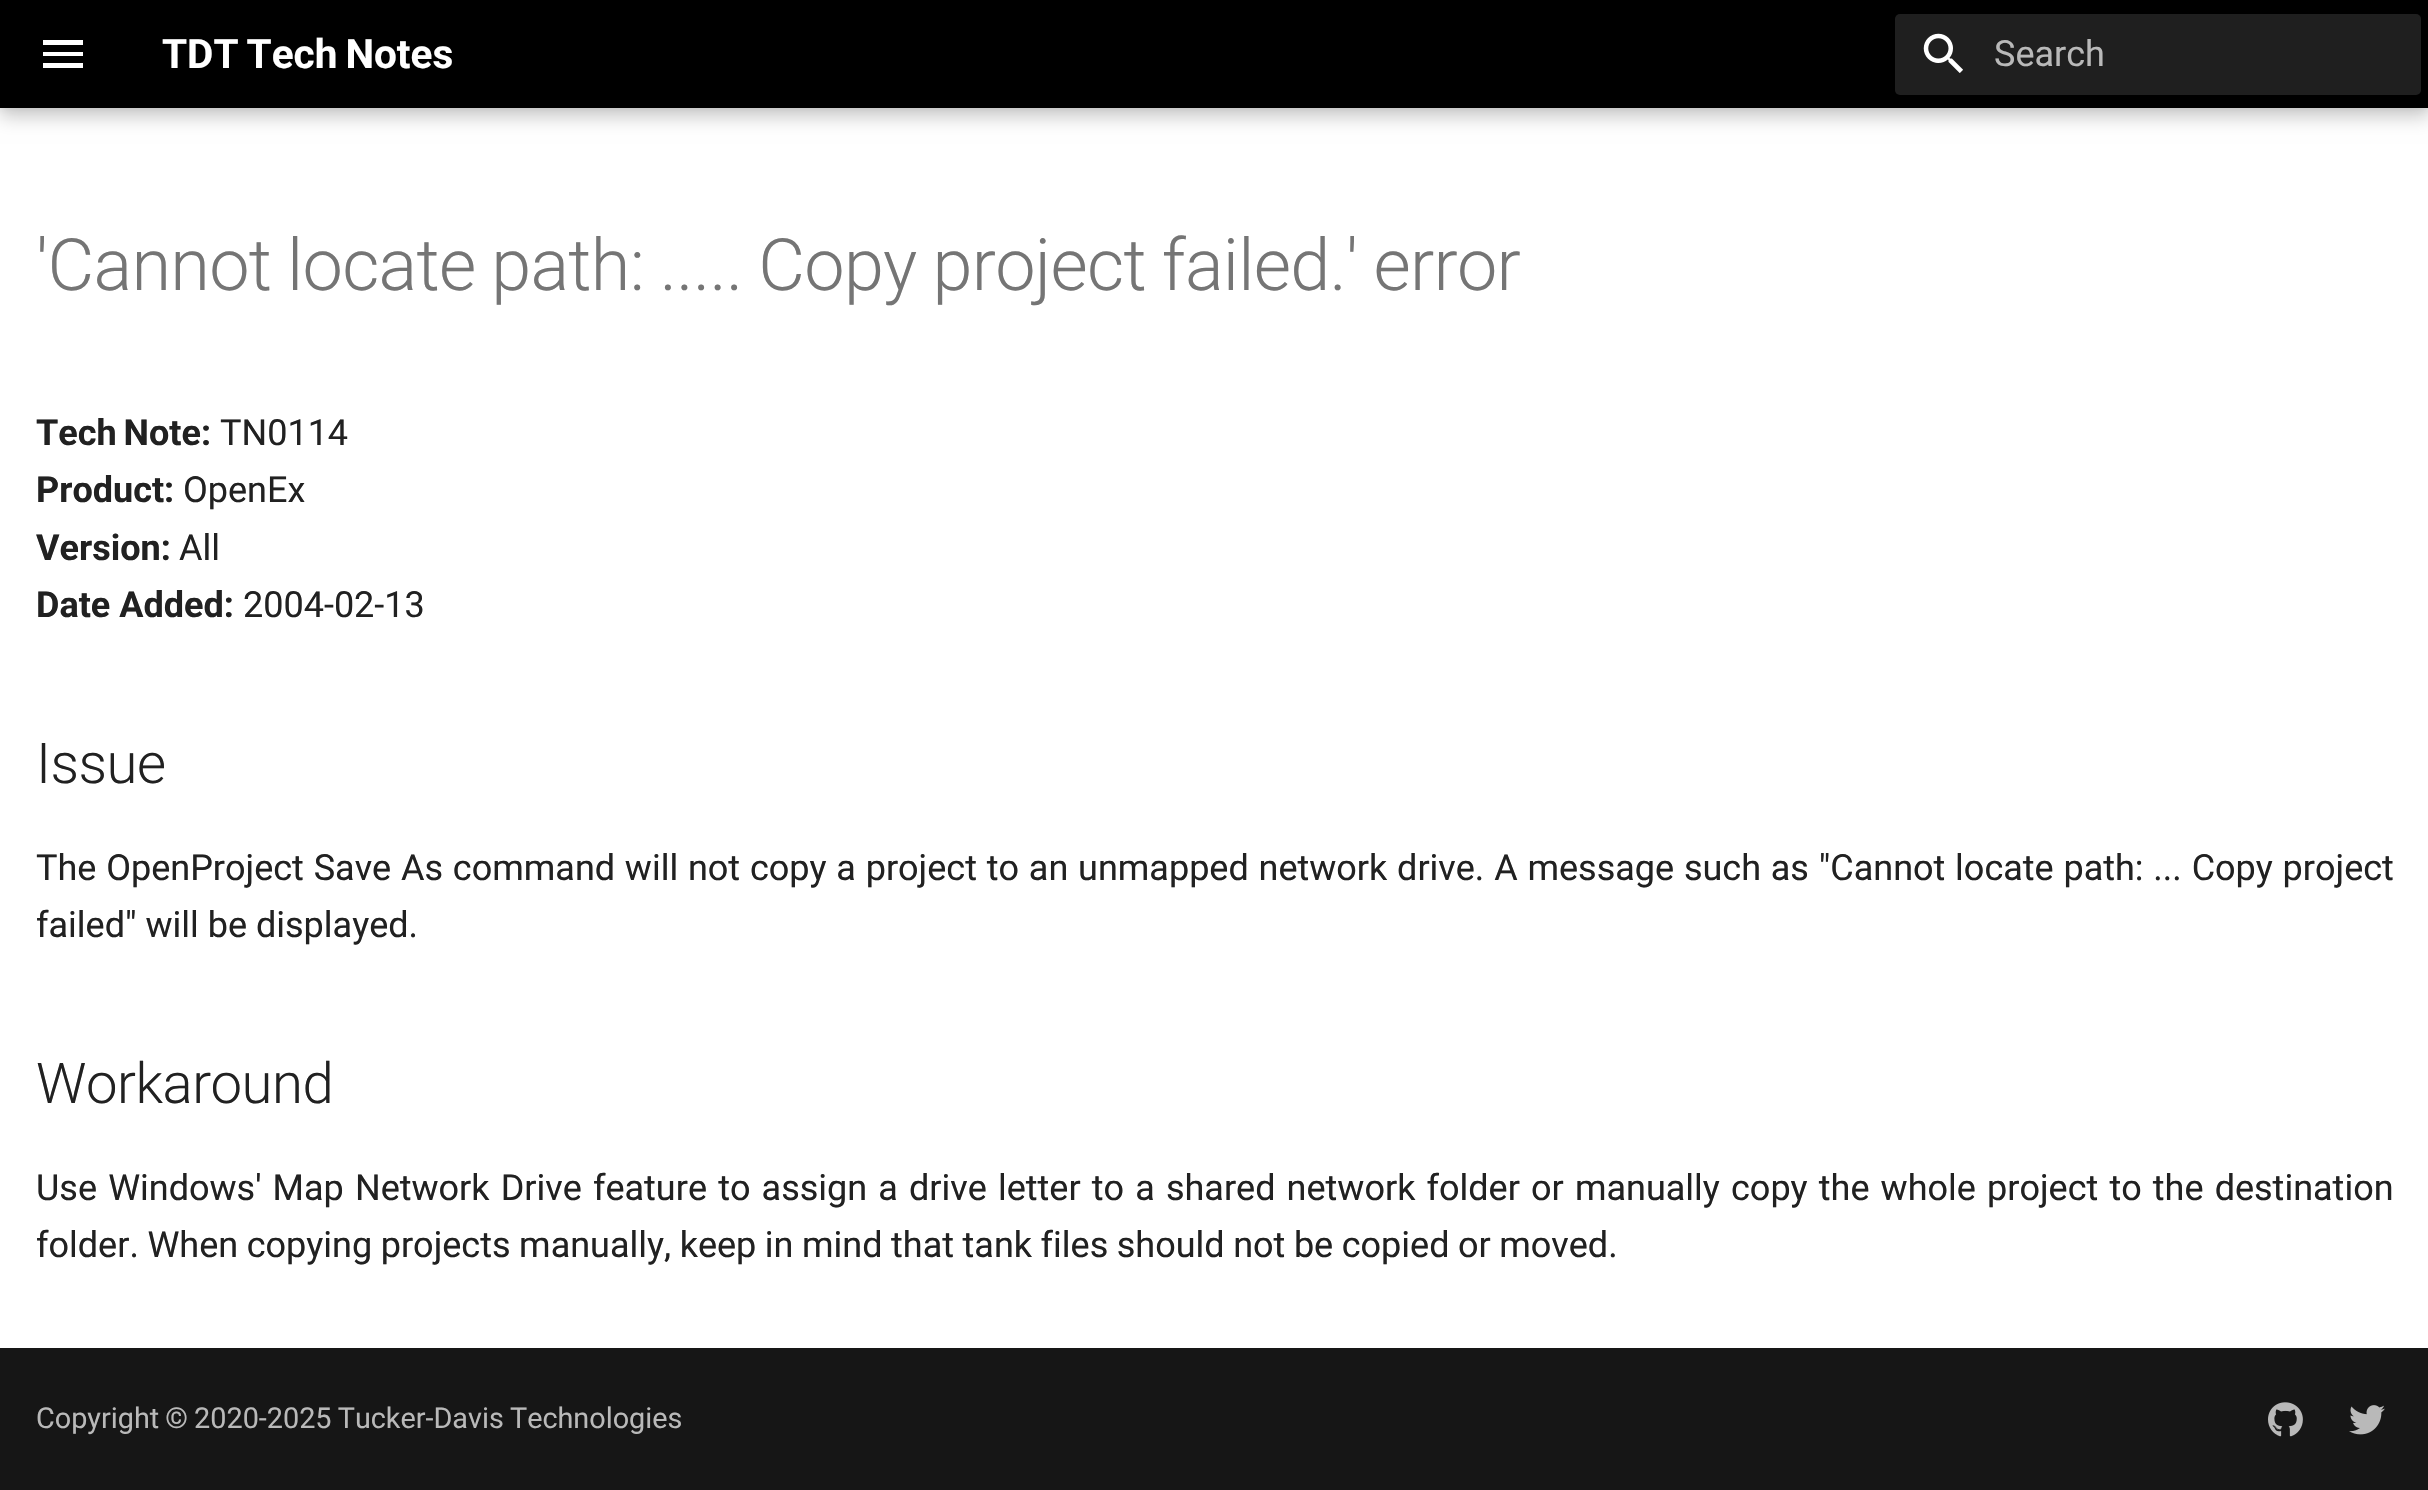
void draw(SkCanvas* canvas) {
	SkPaint paint;
	paint.setAntiAlias(true);
	auto spacedText = [&](const char* s, float x, float y, const SkFont& font, const SkPaint& ink, float letter, float word) {
		std::vector<SkGlyphID> glyphs(font.countText(s, strlen(s), SkTextEncoding::kUTF8));
		std::vector<float> xs(glyphs.size());
		font.textToGlyphs(s, strlen(s), SkTextEncoding::kUTF8, glyphs);
		font.getXPos(glyphs, xs, x);
		float extra = 0;
		for (size_t i = 0; i < glyphs.size(); i++) {
			xs[i] += extra;
			extra += letter + word * (glyphs[i] == font.unicharToGlyph(' '));
		}
		canvas->drawTextBlob(SkTextBlob::MakeFromPosHGlyphs(glyphs, xs, y, font), 0, 0, ink);
	};
	auto svgPath = [&](const char* data, bool evenOdd = false) {
		SkPath result = *SkParsePath::FromSVGString(data);
		if (evenOdd) result.setFillType(SkPathFillType::kEvenOdd);
		return result;
	};
	canvas->clear(0xffffffff);
	paint.setColor(0x33000000);
	paint.setMaskFilter(SkMaskFilter::MakeBlur(kNormal_SkBlurStyle, 9));
	canvas->drawRect(SkRect::MakeXYWH(0, 9, 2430, 108), paint);
	paint.setMaskFilter(nullptr);
	paint.setColor(0x1a000000);
	paint.setMaskFilter(SkMaskFilter::MakeBlur(kNormal_SkBlurStyle, 4.5));
	canvas->drawRect(SkRect::MakeXYWH(0, 0, 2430, 108), paint);
	paint.setMaskFilter(nullptr);
	paint.setColor(0xff000000);
	canvas->drawRect(SkRect::MakeXYWH(0, 0, 2428, 108), paint);
	paint.setColor(0xffffffff);
	canvas->drawPath(svgPath("M43 40H83V45H43V40M43 52H83V56H43V52M43 63H83V68H43Z"), paint);
	SkFont f1(fontMgr->matchFamilyStyle("Roboto", SkFontStyle::Bold()), 40.5);
	f1.setSubpixel(true);
	spacedText("TDT Tech Notes", 162, 68, f1, paint, 0, -2);
	paint.setColor(0xff1f1f1f);
	canvas->drawRoundRect(SkRect::MakeXYWH(1895, 14, 526, 81), 5, 5, paint);
	canvas->drawImageRect(SkImages::DeferredFromEncodedData(SkData::MakeFromFileName("img1.png")), SkRect::MakeXYWH(1923, 33, 40, 40), SkSamplingOptions());
	SkFont f2(fontMgr->matchFamilyStyle("Roboto", SkFontStyle::Normal()), 36);
	f2.setSubpixel(true);
	paint.setColor(0xffb9b9b9);
	canvas->drawString("Search", 1994, 66, f2, paint);
	SkFont f3(fontMgr->matchFamilyStyle("Roboto", SkFontStyle(300, SkFontStyle::kNormal_Width, SkFontStyle::kUpright_Slant)), 72);
	f3.setSubpixel(true);
	paint.setColor(0xff757575);
	spacedText("'Cannot locate path: ..... Copy project failed.' error", 36, 290, f3, paint, -0.72, -1);
	SkFont f4(fontMgr->matchFamilyStyle("Roboto", SkFontStyle::Bold()), 36);
	f4.setSubpixel(true);
	paint.setColor(0xff212121);
	spacedText("Tech Note:", 36, 445, f4, paint, 0, -2);
	canvas->drawString("TN0114", 220, 445, f2, paint);
	canvas->drawString("Product:", 36, 502, f4, paint);
	canvas->drawString("OpenEx", 183, 502, f2, paint);
	canvas->drawString("Version:", 36, 560, f4, paint);
	canvas->drawString("All", 179, 560, f2, paint);
	canvas->drawString("Date Added:", 36, 617, f4, paint);
	canvas->drawString("2004-02-13", 243, 617, f2, paint);
	SkFont f5(fontMgr->matchFamilyStyle("Roboto", SkFontStyle(300, SkFontStyle::kNormal_Width, SkFontStyle::kUpright_Slant)), 56.25);
	f5.setSubpixel(true);
	spacedText("Issue", 36, 783, f5, paint, -0.5, 0);
	spacedText("The OpenProject Save As command will not copy a project to an unmapped network drive. A message such as \"Cannot locate path: ... Copy project", 36, 880, f2, paint, 0, 0.85);
	canvas->drawString("failed\" will be displayed.", 36, 937, f2, paint);
	spacedText("Workaround", 36, 1103, f5, paint, -0.5, 0);
	spacedText("Use Windows' Map Network Drive feature to assign a drive letter to a shared network folder or manually copy the whole project to the destination", 36, 1200, f2, paint, 0, 2.2);
	spacedText("folder. When copying projects manually, keep in mind that tank files should not be copied or moved.", 36, 1257, f2, paint, 0, -0.4);
	paint.setColor(0xff161616);
	canvas->drawRect(SkRect::MakeXYWH(0, 1348, 2428, 142), paint);
	SkFont f6(fontMgr->matchFamilyStyle("Roboto", SkFontStyle::Normal()), 28.8);
	f6.setSubpixel(true);
	paint.setColor(0xffb9b9b9);
	spacedText("Copyright © 2020-2025 Tucker-Davis Technologies", 36, 1428, f6, paint, 0, -1);
	canvas->drawImageRect(SkImages::DeferredFromEncodedData(SkData::MakeFromFileName("img2.png")), SkRect::MakeXYWH(2268, 1402, 35, 35), SkSamplingOptions());
	canvas->drawImageRect(SkImages::DeferredFromEncodedData(SkData::MakeFromFileName("img3.png")), SkRect::MakeXYWH(2349, 1405, 36, 30), SkSamplingOptions());
}
